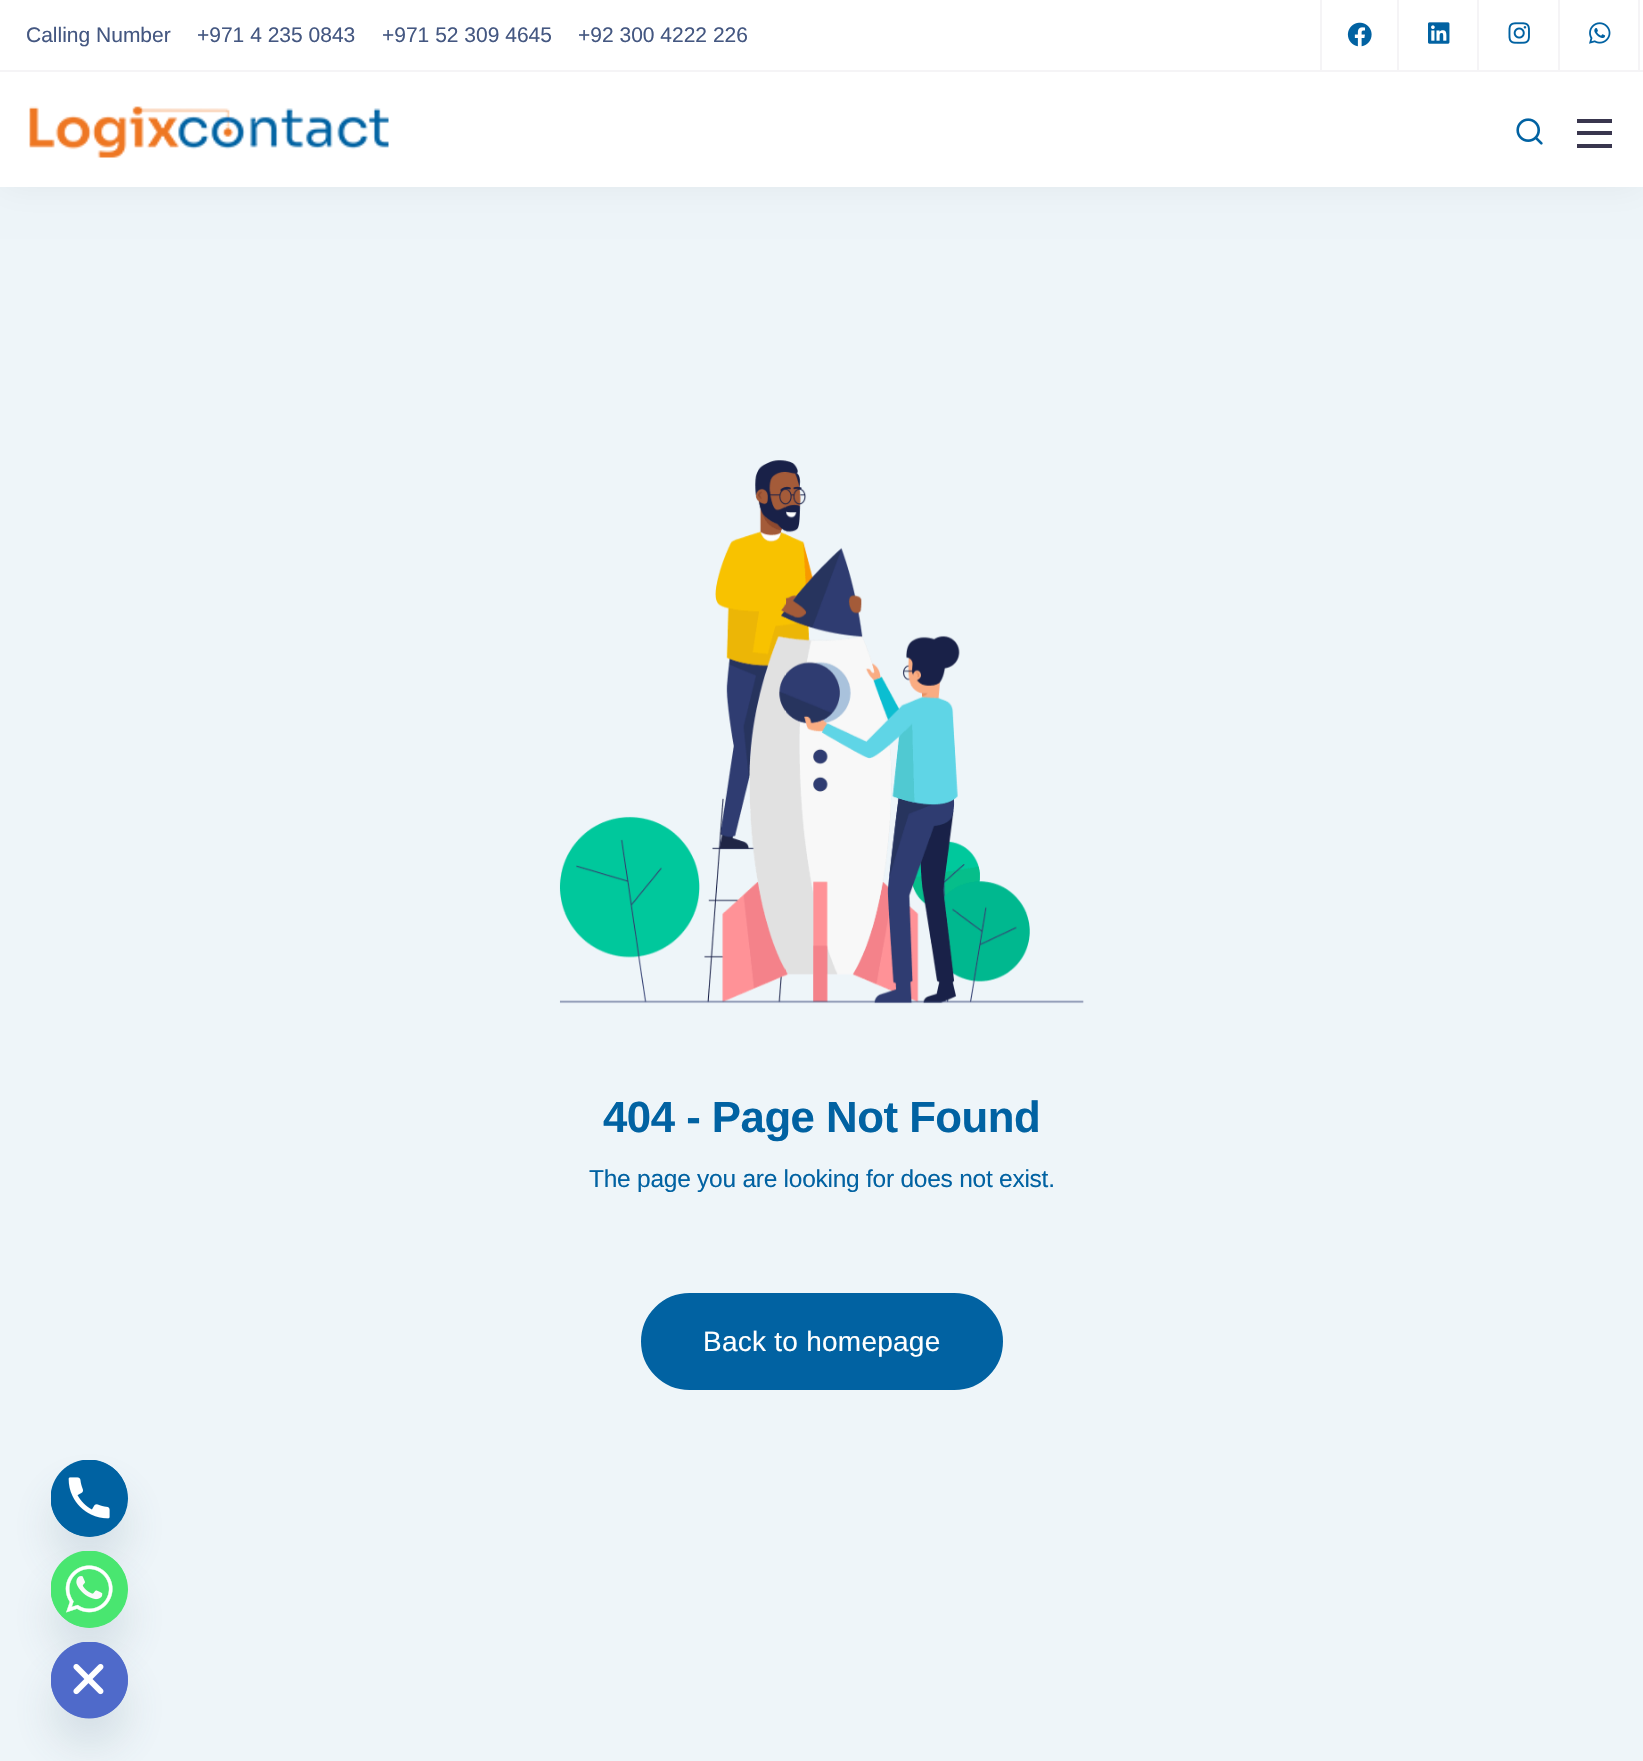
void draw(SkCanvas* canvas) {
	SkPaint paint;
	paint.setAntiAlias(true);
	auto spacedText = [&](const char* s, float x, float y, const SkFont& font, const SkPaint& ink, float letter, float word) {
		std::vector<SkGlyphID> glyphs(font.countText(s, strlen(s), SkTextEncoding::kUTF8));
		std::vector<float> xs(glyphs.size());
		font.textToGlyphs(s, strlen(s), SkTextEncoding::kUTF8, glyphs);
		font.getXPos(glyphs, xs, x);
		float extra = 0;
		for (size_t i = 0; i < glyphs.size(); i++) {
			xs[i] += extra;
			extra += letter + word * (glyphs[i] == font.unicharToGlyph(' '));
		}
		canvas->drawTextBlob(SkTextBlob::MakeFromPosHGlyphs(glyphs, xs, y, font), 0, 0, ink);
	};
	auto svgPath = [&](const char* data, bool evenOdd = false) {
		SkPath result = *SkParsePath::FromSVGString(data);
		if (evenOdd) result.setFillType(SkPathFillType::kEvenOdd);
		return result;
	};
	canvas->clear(0xffeef5f9);
	paint.setColor(0x0d000000);
	paint.setMaskFilter(SkMaskFilter::MakeBlur(kNormal_SkBlurStyle, 17.5));
	canvas->drawRect(SkRect::MakeXYWH(0, 0, 1643, 187), paint);
	paint.setMaskFilter(nullptr);
	paint.setColor(0xffffffff);
	canvas->drawRect(SkRect::MakeXYWH(0, 0, 1643, 70), paint);
	paint.setColor(0xfff5f4f6);
	canvas->drawRect(SkRect::MakeXYWH(0, 70, 1643, 2), paint);
	SkFont f1(fontMgr->matchFamilyStyle("Liberation Sans", SkFontStyle::Normal()), 21);
	f1.setSubpixel(true);
	paint.setColor(0xff445781);
	canvas->drawString("Calling Number", 26, 42, f1, paint);
	canvas->drawString("+971 4 235 0843", 197, 42, f1, paint);
	canvas->drawString("+971 52 309 4645", 382, 42, f1, paint);
	canvas->drawString("+92 300 4222 226", 578, 42, f1, paint);
	paint.setColor(0xfff5f4f6);
	canvas->drawRect(SkRect::MakeXYWH(1320, 0, 2, 70), paint);
	canvas->drawRect(SkRect::MakeXYWH(1397, 0, 2, 70), paint);
	canvas->drawImageRect(SkImages::DeferredFromEncodedData(SkData::MakeFromFileName("img1.png")), SkRect::MakeXYWH(1347, 22, 25, 25), SkSamplingOptions());
	canvas->drawRect(SkRect::MakeXYWH(1477, 0, 2, 70), paint);
	canvas->drawImageRect(SkImages::DeferredFromEncodedData(SkData::MakeFromFileName("img2.png")), SkRect::MakeXYWH(1428, 22, 22, 22), SkSamplingOptions());
	canvas->drawRect(SkRect::MakeXYWH(1558, 0, 2, 70), paint);
	canvas->drawImageRect(SkImages::DeferredFromEncodedData(SkData::MakeFromFileName("img3.png")), SkRect::MakeXYWH(1508, 22, 22, 22), SkSamplingOptions());
	canvas->drawRect(SkRect::MakeXYWH(1638, 0, 2, 70), paint);
	canvas->drawImageRect(SkImages::DeferredFromEncodedData(SkData::MakeFromFileName("img4.png")), SkRect::MakeXYWH(1589, 22, 22, 22), SkSamplingOptions());
	paint.setColor(0xffffffff);
	canvas->drawRect(SkRect::MakeXYWH(0, 72, 1643, 115), paint);
	canvas->drawImageRect(SkImages::DeferredFromEncodedData(SkData::MakeFromFileName("img5.png")), SkRect::MakeXYWH(29, 106, 360, 52), SkSamplingOptions());
	canvas->drawImageRect(SkImages::DeferredFromEncodedData(SkData::MakeFromFileName("img6.png")), SkRect::MakeXYWH(1516, 118, 27, 27), SkSamplingOptions());
	paint.setColor(0xff39364e);
	canvas->drawRect(SkRect::MakeXYWH(1577, 144, 35, 4), paint);
	canvas->drawRect(SkRect::MakeXYWH(1577, 119, 35, 4), paint);
	canvas->drawRect(SkRect::MakeXYWH(1577, 131, 35, 4), paint);
	canvas->drawImageRect(SkImages::DeferredFromEncodedData(SkData::MakeFromFileName("img7.png")), SkRect::MakeXYWH(559, 460, 525, 544), SkSamplingOptions());
	SkFont f2(fontMgr->matchFamilyStyle("Liberation Sans", SkFontStyle::Bold()), 43.75);
	f2.setSubpixel(true);
	paint.setColor(0xff0162a2);
	spacedText("404 - Page Not Found", 603, 1132, f2, paint, -0.5, 0);
	SkFont f3(fontMgr->matchFamilyStyle("Liberation Sans", SkFontStyle::Normal()), 24.5);
	f3.setSubpixel(true);
	spacedText("The page you are looking for does not exist.", 589, 1187, f3, paint, -0.25, 0);
	canvas->drawRoundRect(SkRect::MakeXYWH(642, 1294, 360, 95), 47.5, 47.5, paint);
	paint.setStroke(true);
	paint.setStrokeWidth(2);
	canvas->drawRoundRect(SkRect::MakeXYWH(642, 1294, 360, 95), 47.5, 47.5, paint);
	SkFont f4(fontMgr->matchFamilyStyle("Liberation Sans", SkFontStyle::Normal()), 28);
	f4.setSubpixel(true);
	paint.setStroke(false);
	paint.setColor(0xffffffff);
	spacedText("Back to homepage", 703, 1351, f4, paint, 0.25, 0);
	paint.setColor(0x2949687e);
	paint.setMaskFilter(SkMaskFilter::MakeBlur(kNormal_SkBlurStyle, 21));
	canvas->drawRoundRect(SkRect::MakeXYWH(51, 1488, 77, 77), 38.5, 38.5, paint);
	paint.setMaskFilter(nullptr);
	paint.setColor(0xff0062a2);
	canvas->drawCircle(89.5, 1498.5, 38.5, paint);
	canvas->drawImageRect(SkImages::DeferredFromEncodedData(SkData::MakeFromFileName("img8.png")), SkRect::MakeXYWH(51, 1460, 77, 77), SkSamplingOptions());
	paint.setColor(0x2949687e);
	paint.setMaskFilter(SkMaskFilter::MakeBlur(kNormal_SkBlurStyle, 21));
	canvas->drawRoundRect(SkRect::MakeXYWH(51, 1579, 77, 77), 38.5, 38.5, paint);
	paint.setMaskFilter(nullptr);
	paint.setColor(0xff49e670);
	canvas->drawCircle(89.5, 1589.5, 38.5, paint);
	canvas->drawImageRect(SkImages::DeferredFromEncodedData(SkData::MakeFromFileName("img9.png")), SkRect::MakeXYWH(51, 1551, 77, 77), SkSamplingOptions());
	paint.setColor(0x2949687e);
	paint.setMaskFilter(SkMaskFilter::MakeBlur(kNormal_SkBlurStyle, 21));
	canvas->drawRoundRect(SkRect::MakeXYWH(51, 1670, 77, 77), 38.5, 38.5, paint);
	paint.setMaskFilter(nullptr);
	paint.setColor(0xff4f6aca);
	canvas->drawPath(svgPath("M89 1718C68 1718 51 1701 51 1680C51 1659 68 1642 89 1642C111 1642 128 1659 128 1680C128 1701 111 1718 89 1718Z"), paint);
	canvas->drawImageRect(SkImages::DeferredFromEncodedData(SkData::MakeFromFileName("img10.png")), SkRect::MakeXYWH(51, 1642, 77, 77), SkSamplingOptions());
}
